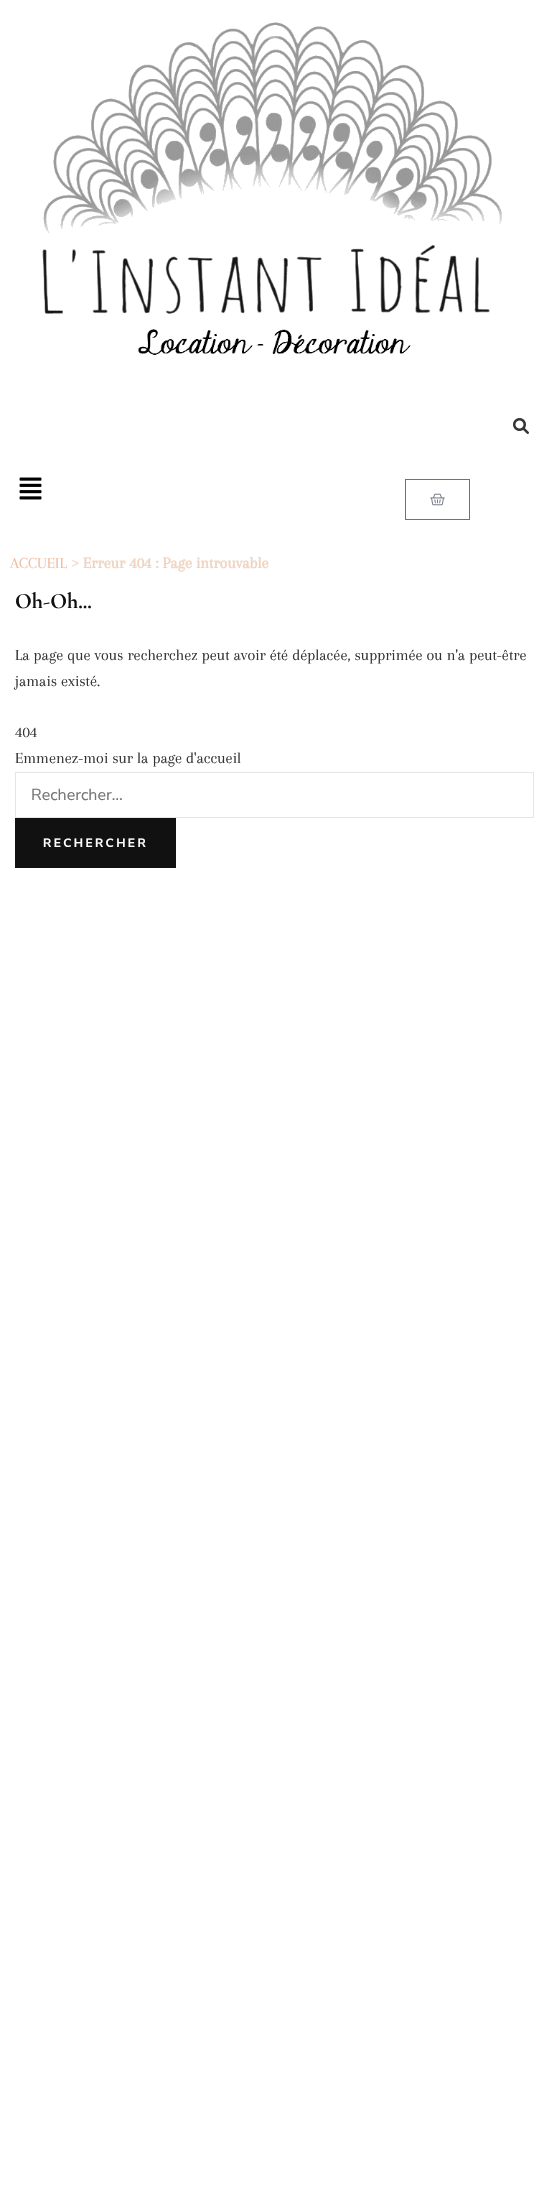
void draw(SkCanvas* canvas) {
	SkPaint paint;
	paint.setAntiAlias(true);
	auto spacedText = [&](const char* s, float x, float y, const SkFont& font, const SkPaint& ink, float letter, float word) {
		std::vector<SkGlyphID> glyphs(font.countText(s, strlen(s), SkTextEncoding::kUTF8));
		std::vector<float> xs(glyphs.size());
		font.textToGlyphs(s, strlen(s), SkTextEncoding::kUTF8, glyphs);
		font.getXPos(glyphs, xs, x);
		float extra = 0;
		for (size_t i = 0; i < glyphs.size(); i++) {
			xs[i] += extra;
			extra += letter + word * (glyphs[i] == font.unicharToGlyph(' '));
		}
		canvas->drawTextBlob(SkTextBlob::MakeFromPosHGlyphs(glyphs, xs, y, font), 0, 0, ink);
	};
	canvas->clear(0xffffffff);
	canvas->drawImageRect(SkImages::DeferredFromEncodedData(SkData::MakeFromFileName("img1.png")), SkRect::MakeXYWH(42, 22, 460, 333), SkSamplingOptions());
	canvas->drawImageRect(SkImages::DeferredFromEncodedData(SkData::MakeFromFileName("img2.png")), SkRect::MakeXYWH(513, 418, 16, 16), SkSamplingOptions());
	canvas->drawImageRect(SkImages::DeferredFromEncodedData(SkData::MakeFromFileName("img3.png")), SkRect::MakeXYWH(19, 477, 23, 23), SkSamplingOptions());
	paint.setStroke(true);
	paint.setStrokeWidth(1);
	paint.setColor(0xff69727d);
	canvas->drawRect(SkRect::MakeXYWH(405.5, 479.5, 64, 40), paint);
	canvas->drawImageRect(SkImages::DeferredFromEncodedData(SkData::MakeFromFileName("img4.png")), SkRect::MakeXYWH(430, 493, 15, 13), SkSamplingOptions());
	SkFont f1(fontMgr->matchFamilyStyle("Arapey", SkFontStyle::Normal()), 16);
	f1.setSubpixel(true);
	paint.setStroke(false);
	paint.setColor(0xffefbfa2);
	canvas->drawString("ACCUEIL", 10, 568, f1, paint);
	paint.setColor(0xfff0d4c2);
	canvas->drawString(">", 71, 568, f1, paint);
	SkFont f2(fontMgr->matchFamilyStyle("Arapey", SkFontStyle::Bold()), 16);
	f2.setSubpixel(true);
	canvas->drawString("Erreur 404 : Page introuvable", 83, 568, f2, paint);
	SkFont f3(fontMgr->matchFamilyStyle("Cormorant", SkFontStyle::Bold()), 22);
	f3.setSubpixel(true);
	paint.setColor(0xff111111);
	canvas->drawString("Oh-Oh...", 15, 608, f3, paint);
	paint.setColor(0xff333333);
	canvas->drawString("La page que vous recherchez peut avoir été déplacée, supprimée ou n'a peut-être", 15, 660, f1, paint);
	canvas->drawString("jamais existé.", 15, 686, f1, paint);
	canvas->drawString("404", 15, 737, f1, paint);
	canvas->drawString("Emmenez-moi sur la page d'accueil", 15, 763, f1, paint);
	paint.setStroke(true);
	paint.setColor(0xffe5e5e5);
	canvas->drawRect(SkRect::MakeXYWH(15.5, 772.5, 518, 45), paint);
	SkFont f4(fontMgr->matchFamilyStyle("Nunito Sans", SkFontStyle::Normal()), 16);
	f4.setSubpixel(true);
	paint.setStroke(false);
	paint.setColor(0xff757575);
	canvas->drawString("Rechercher…", 31, 800, f4, paint);
	paint.setColor(0xff111111);
	canvas->drawRect(SkRect::MakeXYWH(15, 818, 161, 50), paint);
	SkFont f5(fontMgr->matchFamilyStyle("Nunito Sans", SkFontStyle::Bold()), 12);
	f5.setSubpixel(true);
	paint.setColor(0xffffffff);
	spacedText("RECHERCHER", 43, 847, f5, paint, 2.4, 0);
}
